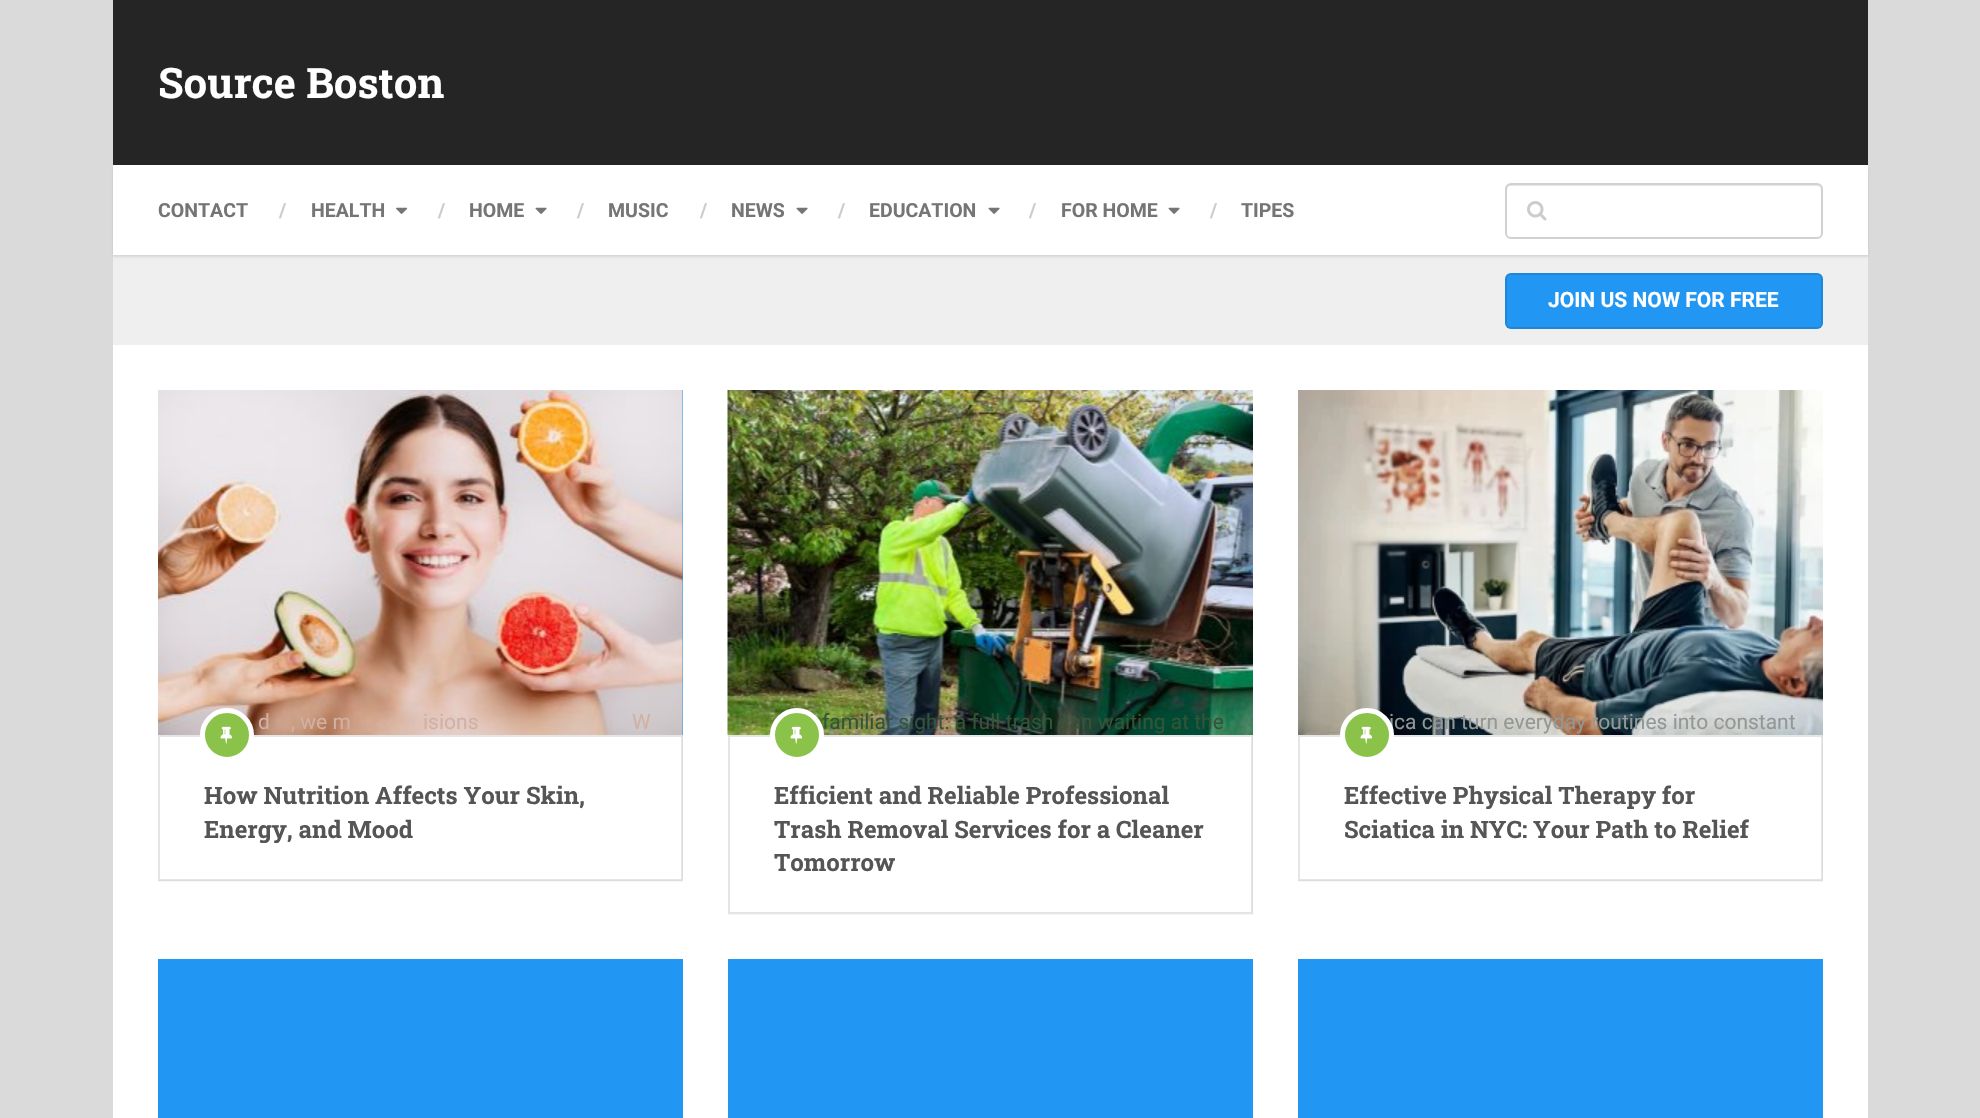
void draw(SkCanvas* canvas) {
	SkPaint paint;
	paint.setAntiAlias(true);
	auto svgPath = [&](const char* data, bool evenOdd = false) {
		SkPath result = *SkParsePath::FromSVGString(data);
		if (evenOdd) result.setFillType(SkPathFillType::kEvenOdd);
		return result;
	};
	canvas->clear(0xffdadada);
	paint.setColor(0xff252525);
	canvas->drawRect(SkRect::MakeXYWH(113, 0, 1755, 165), paint);
	SkFont f1(fontMgr->matchFamilyStyle("Roboto Slab", SkFontStyle::Bold()), 42);
	f1.setSubpixel(true);
	paint.setColor(0xffffffff);
	canvas->drawString("Source Boston", 158, 98, f1, paint);
	paint.setColor(0xffefefef);
	canvas->drawRect(SkRect::MakeXYWH(113, 255, 1755, 90), paint);
	paint.setColor(0x1a000000);
	paint.setMaskFilter(SkMaskFilter::MakeBlur(kNormal_SkBlurStyle, 1));
	canvas->drawRect(SkRect::MakeXYWH(113, 167, 1755, 90), paint);
	paint.setMaskFilter(nullptr);
	paint.setColor(0xffffffff);
	canvas->drawRect(SkRect::MakeXYWH(113, 165, 1755, 90), paint);
	SkFont f2(fontMgr->matchFamilyStyle("Roboto", SkFontStyle::Bold()), 19.5);
	f2.setSubpixel(true);
	paint.setColor(0xff757575);
	canvas->drawString("CONTACT", 158, 217, f2, paint);
	paint.setColor(0xffcccccc);
	canvas->drawString("/", 279, 217, f2, paint);
	paint.setColor(0xff757575);
	canvas->drawString("HEALTH", 311, 217, f2, paint);
	canvas->drawImageRect(SkImages::DeferredFromEncodedData(SkData::MakeFromFileName("img1.png")), SkRect::MakeXYWH(396, 207, 12, 7), SkSamplingOptions());
	paint.setColor(0xffcccccc);
	canvas->drawString("/", 438, 217, f2, paint);
	paint.setColor(0xff757575);
	canvas->drawString("HOME", 469, 217, f2, paint);
	canvas->drawImageRect(SkImages::DeferredFromEncodedData(SkData::MakeFromFileName("img2.png")), SkRect::MakeXYWH(535, 207, 12, 7), SkSamplingOptions());
	paint.setColor(0xffcccccc);
	canvas->drawString("/", 577, 217, f2, paint);
	paint.setColor(0xff757575);
	canvas->drawString("MUSIC", 608, 217, f2, paint);
	paint.setColor(0xffcccccc);
	canvas->drawString("/", 700, 217, f2, paint);
	paint.setColor(0xff757575);
	canvas->drawString("NEWS", 731, 217, f2, paint);
	canvas->drawImageRect(SkImages::DeferredFromEncodedData(SkData::MakeFromFileName("img2.png")), SkRect::MakeXYWH(796, 207, 12, 7), SkSamplingOptions());
	paint.setColor(0xffcccccc);
	canvas->drawString("/", 838, 217, f2, paint);
	paint.setColor(0xff757575);
	canvas->drawString("EDUCATION", 869, 217, f2, paint);
	canvas->drawImageRect(SkImages::DeferredFromEncodedData(SkData::MakeFromFileName("img2.png")), SkRect::MakeXYWH(988, 207, 12, 7), SkSamplingOptions());
	paint.setColor(0xffcccccc);
	canvas->drawString("/", 1029, 217, f2, paint);
	paint.setColor(0xff757575);
	canvas->drawString("FOR HOME", 1061, 217, f2, paint);
	canvas->drawImageRect(SkImages::DeferredFromEncodedData(SkData::MakeFromFileName("img2.png")), SkRect::MakeXYWH(1168, 207, 12, 7), SkSamplingOptions());
	paint.setColor(0xffcccccc);
	canvas->drawString("/", 1210, 217, f2, paint);
	paint.setColor(0xff757575);
	canvas->drawString("TIPES", 1241, 217, f2, paint);
	paint.setColor(0xffe6e6e6);
	canvas->drawPath(svgPath("M1510 186H1816C1819 186 1821 188 1821 190C1821 187 1819 185 1816 185H1511C1508 185 1506 187 1506 190C1506 188 1508 186 1510 186Z"), paint);
	paint.setStroke(true);
	paint.setStrokeWidth(2);
	paint.setColor(0x2e000000);
	canvas->drawRoundRect(SkRect::MakeXYWH(1506, 184, 316, 54), 5, 5, paint);
	canvas->drawImageRect(SkImages::DeferredFromEncodedData(SkData::MakeFromFileName("img3.png")), SkRect::MakeXYWH(1527, 201, 20, 20), SkSamplingOptions());
	paint.setStroke(false);
	paint.setColor(0xff2196f3);
	canvas->drawRoundRect(SkRect::MakeXYWH(1505, 273, 318, 56), 6, 6, paint);
	paint.setStroke(true);
	paint.setColor(0x1a000000);
	canvas->drawRoundRect(SkRect::MakeXYWH(1506, 274, 316, 54), 5, 5, paint);
	SkFont f3(fontMgr->matchFamilyStyle("Roboto", SkFontStyle::Bold()), 21);
	f3.setSubpixel(true);
	paint.setStroke(false);
	paint.setColor(0xffffffff);
	canvas->drawString("JOIN US NOW FOR FREE", 1548, 307, f3, paint);
	canvas->drawRect(SkRect::MakeXYWH(113, 345, 1755, 773), paint);
	paint.setColor(0xfff7f7f7);
	canvas->drawPath(svgPath("M158 880V882H683V392H682V880Z"), paint);
	paint.setColor(0xff2196f3);
	canvas->drawRect(SkRect::MakeXYWH(682, 390, 1, 345), paint);
	canvas->drawImageRect(SkImages::DeferredFromEncodedData(SkData::MakeFromFileName("img5.png")), SkRect::MakeXYWH(158, 390, 525, 345), SkSamplingOptions());
	paint.setStroke(true);
	paint.setColor(0x1a000000);
	canvas->drawRect(SkRect::MakeXYWH(159, 736, 523, 144), paint);
	paint.setStroke(false);
	paint.setColor(0xff8bc34a);
	canvas->drawCircle(227, 735, 24.5, paint);
	paint.setStroke(true);
	paint.setStrokeWidth(5);
	paint.setColor(0xffffffff);
	canvas->drawCircle(227, 735, 24.5, paint);
	canvas->drawImageRect(SkImages::DeferredFromEncodedData(SkData::MakeFromFileName("img4.png")), SkRect::MakeXYWH(220, 726, 12, 18), SkSamplingOptions());
	SkFont f4(fontMgr->matchFamilyStyle("Roboto", SkFontStyle::Normal()), 21);
	f4.setSubpixel(true);
	paint.setStroke(false);
	paint.setColor(0xffd1b1a3);
	canvas->drawString("d", 258, 729, f4, paint);
	canvas->drawString(", we m", 291, 729, f4, paint);
	canvas->drawString("isions", 423, 729, f4, paint);
	canvas->drawString("W", 632, 729, f4, paint);
	SkFont f5(fontMgr->matchFamilyStyle("Roboto Slab", SkFontStyle::Bold()), 24);
	f5.setSubpixel(true);
	paint.setColor(0xff555555);
	canvas->drawString("How Nutrition Affects Your Skin,", 204, 804, f5, paint);
	canvas->drawString("Energy, and Mood", 204, 838, f5, paint);
	paint.setColor(0xfff7f7f7);
	canvas->drawPath(svgPath("M728 914V915H1253V392H1252V914Z"), paint);
	canvas->drawImageRect(SkImages::DeferredFromEncodedData(SkData::MakeFromFileName("img6.png")), SkRect::MakeXYWH(727, 390, 526, 345), SkSamplingOptions());
	paint.setColor(0xff345437);
	canvas->drawString("familiar sight: a full trash can waiting at the", 822, 729, f4, paint);
	paint.setStroke(true);
	paint.setStrokeWidth(2);
	paint.setColor(0x1a000000);
	canvas->drawRect(SkRect::MakeXYWH(729, 736, 523, 177), paint);
	paint.setStroke(false);
	paint.setColor(0xff8bc34a);
	canvas->drawCircle(797, 735, 24.5, paint);
	paint.setStroke(true);
	paint.setStrokeWidth(5);
	paint.setColor(0xffffffff);
	canvas->drawCircle(797, 735, 24.5, paint);
	canvas->drawImageRect(SkImages::DeferredFromEncodedData(SkData::MakeFromFileName("img4.png")), SkRect::MakeXYWH(790, 726, 12, 18), SkSamplingOptions());
	paint.setStroke(false);
	paint.setColor(0xff555555);
	canvas->drawString("Efficient and Reliable Professional", 774, 804, f5, paint);
	canvas->drawString("Trash Removal Services for a Cleaner", 774, 838, f5, paint);
	canvas->drawString("Tomorrow", 774, 871, f5, paint);
	paint.setColor(0xfff7f7f7);
	canvas->drawPath(svgPath("M1298 880V882H1823V392H1822V880Z"), paint);
	canvas->drawImageRect(SkImages::DeferredFromEncodedData(SkData::MakeFromFileName("img7.png")), SkRect::MakeXYWH(1298, 390, 525, 345), SkSamplingOptions());
	paint.setColor(0xff949794);
	canvas->drawString("ica can turn everyday routines into constant", 1389, 729, f4, paint);
	paint.setStroke(true);
	paint.setStrokeWidth(2);
	paint.setColor(0x1a000000);
	canvas->drawRect(SkRect::MakeXYWH(1299, 736, 523, 144), paint);
	paint.setStroke(false);
	paint.setColor(0xff8bc34a);
	canvas->drawCircle(1367, 735, 24.5, paint);
	paint.setStroke(true);
	paint.setStrokeWidth(5);
	paint.setColor(0xffffffff);
	canvas->drawCircle(1367, 735, 24.5, paint);
	canvas->drawImageRect(SkImages::DeferredFromEncodedData(SkData::MakeFromFileName("img4.png")), SkRect::MakeXYWH(1360, 726, 12, 18), SkSamplingOptions());
	paint.setStroke(false);
	paint.setColor(0xff555555);
	canvas->drawString("Effective Physical Therapy for", 1344, 804, f5, paint);
	canvas->drawString("Sciatica in NYC: Your Path to Relief", 1344, 838, f5, paint);
	paint.setColor(0xff2196f3);
	canvas->drawRect(SkRect::MakeXYWH(158, 959, 525, 159), paint);
	canvas->drawRect(SkRect::MakeXYWH(728, 959, 525, 159), paint);
	canvas->drawRect(SkRect::MakeXYWH(1298, 959, 525, 159), paint);
}
